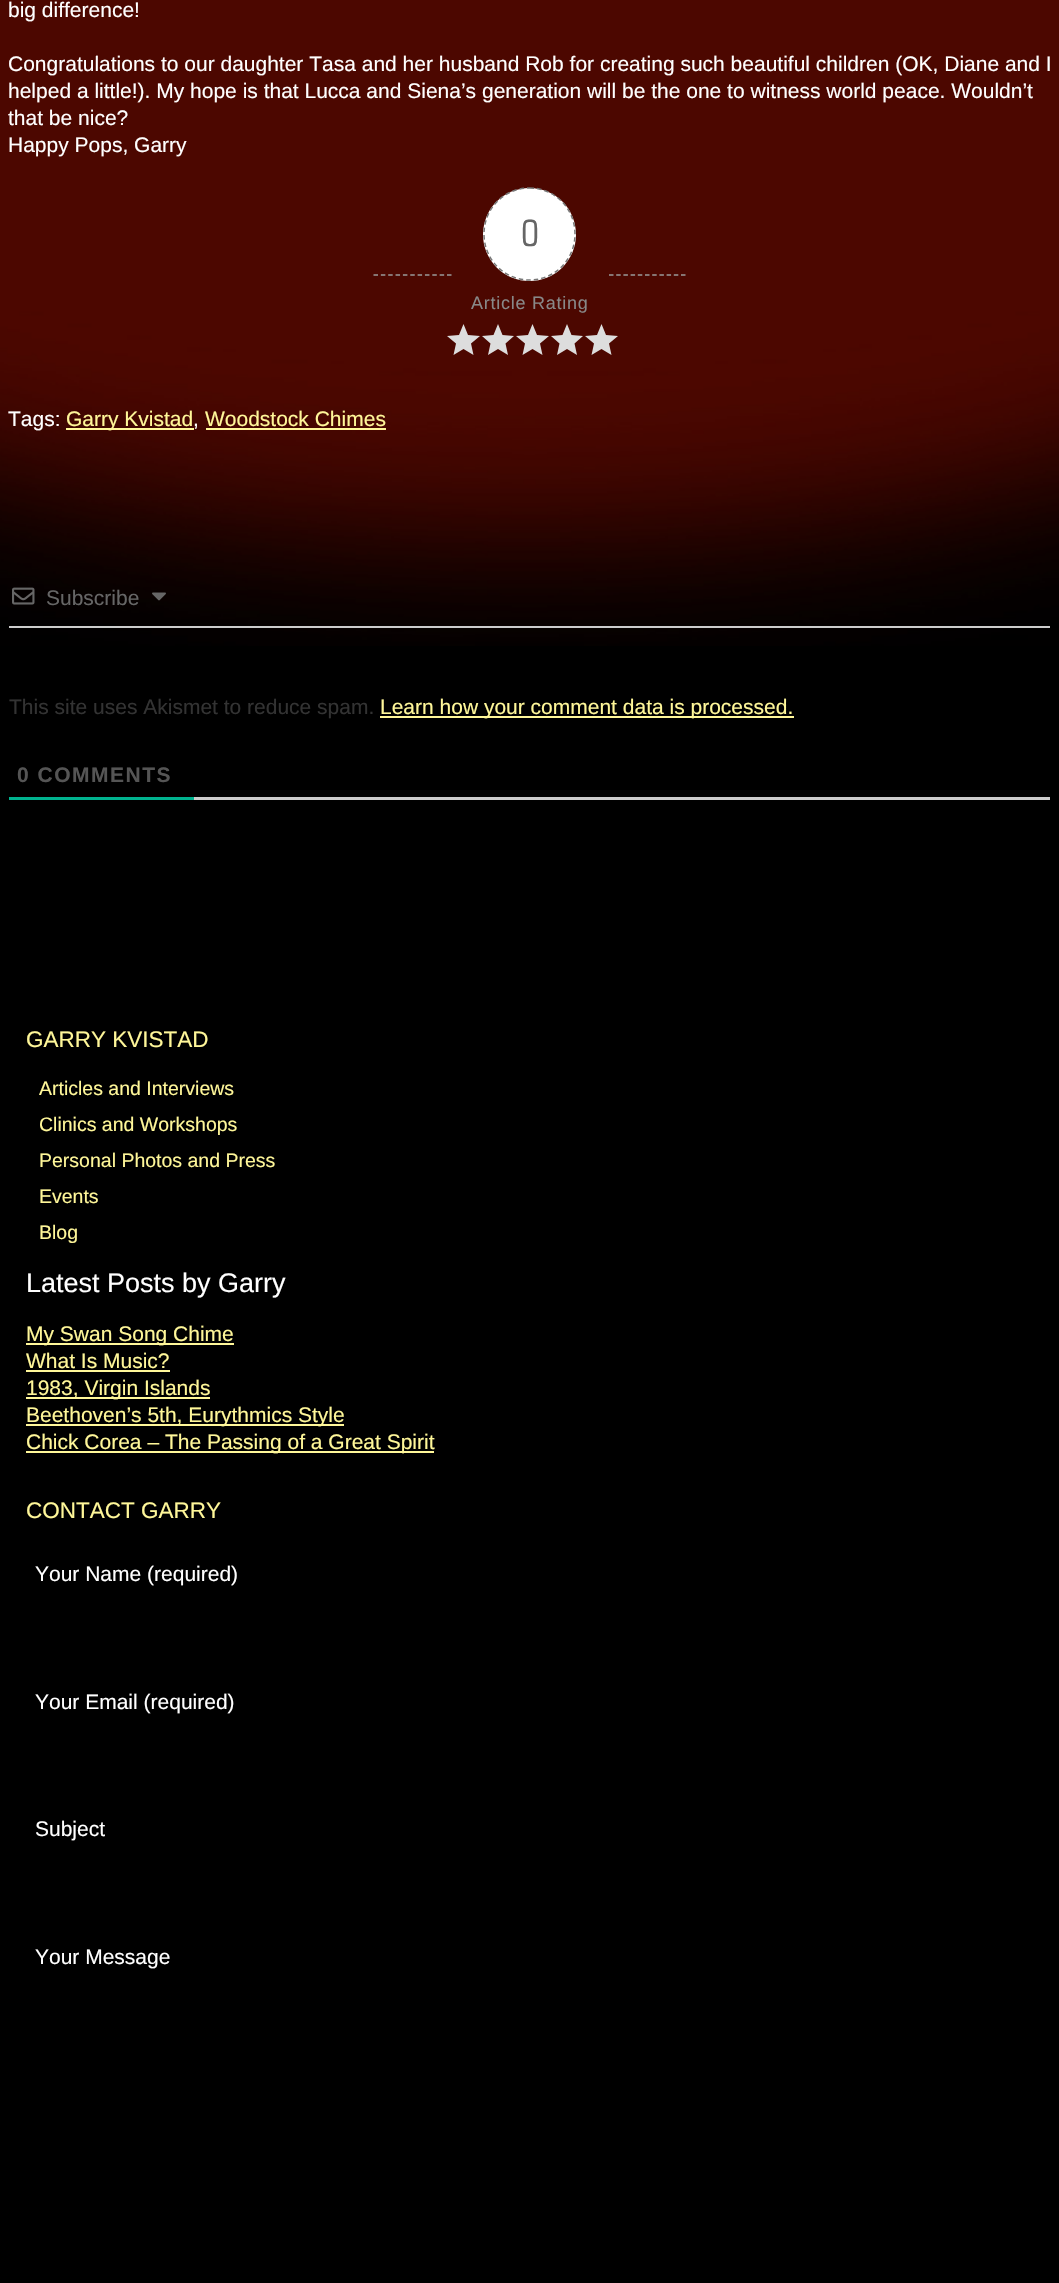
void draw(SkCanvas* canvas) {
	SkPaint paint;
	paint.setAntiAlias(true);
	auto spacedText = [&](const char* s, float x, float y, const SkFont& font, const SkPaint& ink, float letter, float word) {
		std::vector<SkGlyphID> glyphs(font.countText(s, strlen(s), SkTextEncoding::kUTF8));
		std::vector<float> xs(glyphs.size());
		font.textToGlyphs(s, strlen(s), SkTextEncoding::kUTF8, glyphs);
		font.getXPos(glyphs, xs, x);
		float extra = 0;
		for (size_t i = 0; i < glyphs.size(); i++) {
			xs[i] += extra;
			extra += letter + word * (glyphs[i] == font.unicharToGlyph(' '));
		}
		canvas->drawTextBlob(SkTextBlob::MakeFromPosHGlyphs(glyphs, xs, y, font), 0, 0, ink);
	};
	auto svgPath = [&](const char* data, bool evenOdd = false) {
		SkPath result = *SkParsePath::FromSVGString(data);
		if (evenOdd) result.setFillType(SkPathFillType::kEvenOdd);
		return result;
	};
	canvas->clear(0xff000000);
	canvas->drawImageRect(SkImages::DeferredFromEncodedData(SkData::MakeFromFileName("img1.png")), SkRect::MakeXYWH(0, 0, 1059, 646), SkSamplingOptions());
	SkFont f1(fontMgr->matchFamilyStyle("Liberation Sans", SkFontStyle::Normal()), 21);
	f1.setSubpixel(true);
	paint.setColor(0xffffffff);
	canvas->drawString("big difference!", 8, 17, f1, paint);
	canvas->drawString("Congratulations to our daughter Tasa and her husband Rob for creating such beautiful children (OK, Diane and I", 8, 71, f1, paint);
	canvas->drawString("helped a little!). My hope is that Lucca and Siena’s generation will be the one to witness world peace. Wouldn’t", 8, 98, f1, paint);
	canvas->drawString("that be nice?", 8, 125, f1, paint);
	canvas->drawString("Happy Pops, Garry", 8, 152, f1, paint);
	paint.setStroke(true);
	paint.setStrokeWidth(1.5);
	paint.setColor(0xff999999);
	paint.setPathEffect(SkDashPathEffect::Make({{4.5f, 2.85f}}, 0));
	canvas->drawPath(svgPath("M373.5 275H451.5"), paint);
	paint.setPathEffect(nullptr);
	paint.setStroke(false);
	paint.setColor(0xffffffff);
	canvas->drawCircle(529.5, 234.5, 46.5, paint);
	paint.setStroke(true);
	paint.setColor(0xff777777);
	paint.setPathEffect(SkDashPathEffect::Make({{4.5f, 3}}, 0));
	canvas->drawPath(svgPath("M529.5 188C555 188 575 208.5 575 234C575 259.5 555 280 529.5 280C504 280 484 259.5 484 234C484 208.5 504 188 529.5 188Z"), paint);
	paint.setPathEffect(nullptr);
	SkFont f2(fontMgr->matchFamilyStyle("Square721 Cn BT", SkFontStyle::Normal()), 36);
	f2.setSubpixel(true);
	paint.setStroke(false);
	paint.setColor(0xff666666);
	canvas->drawString("0", 521, 246, f2, paint);
	SkFont f3(fontMgr->matchFamilyStyle("Liberation Sans", SkFontStyle::Normal()), 18);
	f3.setSubpixel(true);
	paint.setColor(0xff888888);
	spacedText("Article Rating", 471, 309, f3, paint, 0.75, 0);
	paint.setColor(0xffdddddd);
	canvas->drawPath(svgPath("M463.5 349L473.5 355L471 343.5L480 336L468 335L463.5 324L459 335L447 336L456 343.5L453.5 355Z"), paint);
	canvas->drawPath(svgPath("M498 349L508 355L505.5 343.5L514 336L502.5 335L498 324L493.5 335L482 336L490.5 343.5L488 355Z"), paint);
	canvas->drawPath(svgPath("M532.5 349L542.5 355L540 343.5L549 336L537 335L532.5 324L528 335L516 336L525 343.5L522.5 355Z"), paint);
	canvas->drawPath(svgPath("M567 349L577 355L574.5 343.5L583 336L571.5 335L567 324L562.5 335L551 336L559.5 343.5L557 355Z"), paint);
	canvas->drawPath(svgPath("M601.5 349L611.5 355L609 343.5L618 336L606 335L601.5 324L597 335L585 336L594 343.5L591.5 355Z"), paint);
	paint.setStroke(true);
	paint.setColor(0xff999999);
	paint.setPathEffect(SkDashPathEffect::Make({{4.5f, 2.7f}}, 0));
	canvas->drawPath(svgPath("M609 275H685.5"), paint);
	paint.setPathEffect(nullptr);
	paint.setStroke(false);
	paint.setColor(0xffffffff);
	canvas->drawString("Tags:", 8, 426, f1, paint);
	paint.setColor(0xfffff799);
	canvas->drawRect(SkRect::MakeXYWH(66, 428, 128, 2), paint);
	canvas->drawString("Garry Kvistad", 66, 426, f1, paint);
	paint.setColor(0xffffffff);
	canvas->drawString(",", 193, 426, f1, paint);
	paint.setColor(0xfffff799);
	canvas->drawString("Woodstock Chimes", 205, 426, f1, paint);
	canvas->drawRect(SkRect::MakeXYWH(206, 428, 180, 2), paint);
	paint.setColor(0xffcccccc);
	canvas->drawRect(SkRect::MakeXYWH(9, 626, 1041, 2), paint);
	canvas->drawImageRect(SkImages::DeferredFromEncodedData(SkData::MakeFromFileName("img2.png")), SkRect::MakeXYWH(12, 587, 23, 18), SkSamplingOptions());
	paint.setColor(0xff666666);
	canvas->drawString("Subscribe", 46, 605, f1, paint);
	canvas->drawImageRect(SkImages::DeferredFromEncodedData(SkData::MakeFromFileName("img3.png")), SkRect::MakeXYWH(152, 592, 14, 9), SkSamplingOptions());
	paint.setColor(0xff333333);
	canvas->drawString("This site uses Akismet to reduce spam.", 9, 714, f1, paint);
	paint.setColor(0xfffff799);
	canvas->drawRect(SkRect::MakeXYWH(380, 716, 414, 2), paint);
	canvas->drawString("Learn how your comment data is processed.", 380, 714, f1, paint);
	paint.setColor(0xffcccccc);
	canvas->drawRect(SkRect::MakeXYWH(194, 797, 856, 3), paint);
	paint.setColor(0xff00b38f);
	canvas->drawRect(SkRect::MakeXYWH(9, 797, 185, 3), paint);
	SkFont f4(fontMgr->matchFamilyStyle("Liberation Sans", SkFontStyle::Bold()), 21);
	f4.setSubpixel(true);
	paint.setColor(0xff555555);
	spacedText("0 COMMENTS", 17, 782, f4, paint, 1.5, 0);
	SkFont f5(fontMgr->matchFamilyStyle("Liberation Sans", SkFontStyle::Normal()), 22.5);
	f5.setSubpixel(true);
	paint.setColor(0xfffff799);
	canvas->drawString("GARRY KVISTAD", 26, 1047, f5, paint);
	SkFont f6(fontMgr->matchFamilyStyle("Liberation Sans", SkFontStyle::Normal()), 19.5);
	f6.setSubpixel(true);
	canvas->drawString("Articles and Interviews", 39, 1095, f6, paint);
	canvas->drawString("Clinics and Workshops", 39, 1131, f6, paint);
	canvas->drawString("Personal Photos and Press", 39, 1167, f6, paint);
	canvas->drawString("Events", 39, 1203, f6, paint);
	canvas->drawString("Blog", 39, 1239, f6, paint);
	SkFont f7(fontMgr->matchFamilyStyle("Liberation Sans", SkFontStyle::Normal()), 27);
	f7.setSubpixel(true);
	paint.setColor(0xffffffff);
	canvas->drawString("Latest Posts by Garry", 26, 1292, f7, paint);
	paint.setColor(0xfffff799);
	canvas->drawRect(SkRect::MakeXYWH(26, 1343, 208, 2), paint);
	canvas->drawString("My Swan Song Chime", 26, 1341, f1, paint);
	canvas->drawString("What Is Music?", 26, 1368, f1, paint);
	canvas->drawRect(SkRect::MakeXYWH(26, 1370, 144, 2), paint);
	canvas->drawRect(SkRect::MakeXYWH(26, 1397, 184, 2), paint);
	canvas->drawString("1983, Virgin Islands", 26, 1395, f1, paint);
	canvas->drawRect(SkRect::MakeXYWH(26, 1424, 318, 2), paint);
	canvas->drawString("Beethoven’s 5th, Eurythmics Style", 26, 1422, f1, paint);
	canvas->drawRect(SkRect::MakeXYWH(26, 1451, 408, 2), paint);
	canvas->drawString("Chick Corea – The Passing of a Great Spirit", 26, 1449, f1, paint);
	canvas->drawString("CONTACT GARRY", 26, 1518, f5, paint);
	paint.setColor(0xffffffff);
	canvas->drawString("Your Name (required)", 35, 1581, f1, paint);
	canvas->drawString("Your Email (required)", 35, 1709, f1, paint);
	canvas->drawString("Subject", 35, 1836, f1, paint);
	canvas->drawString("Your Message", 35, 1964, f1, paint);
}
